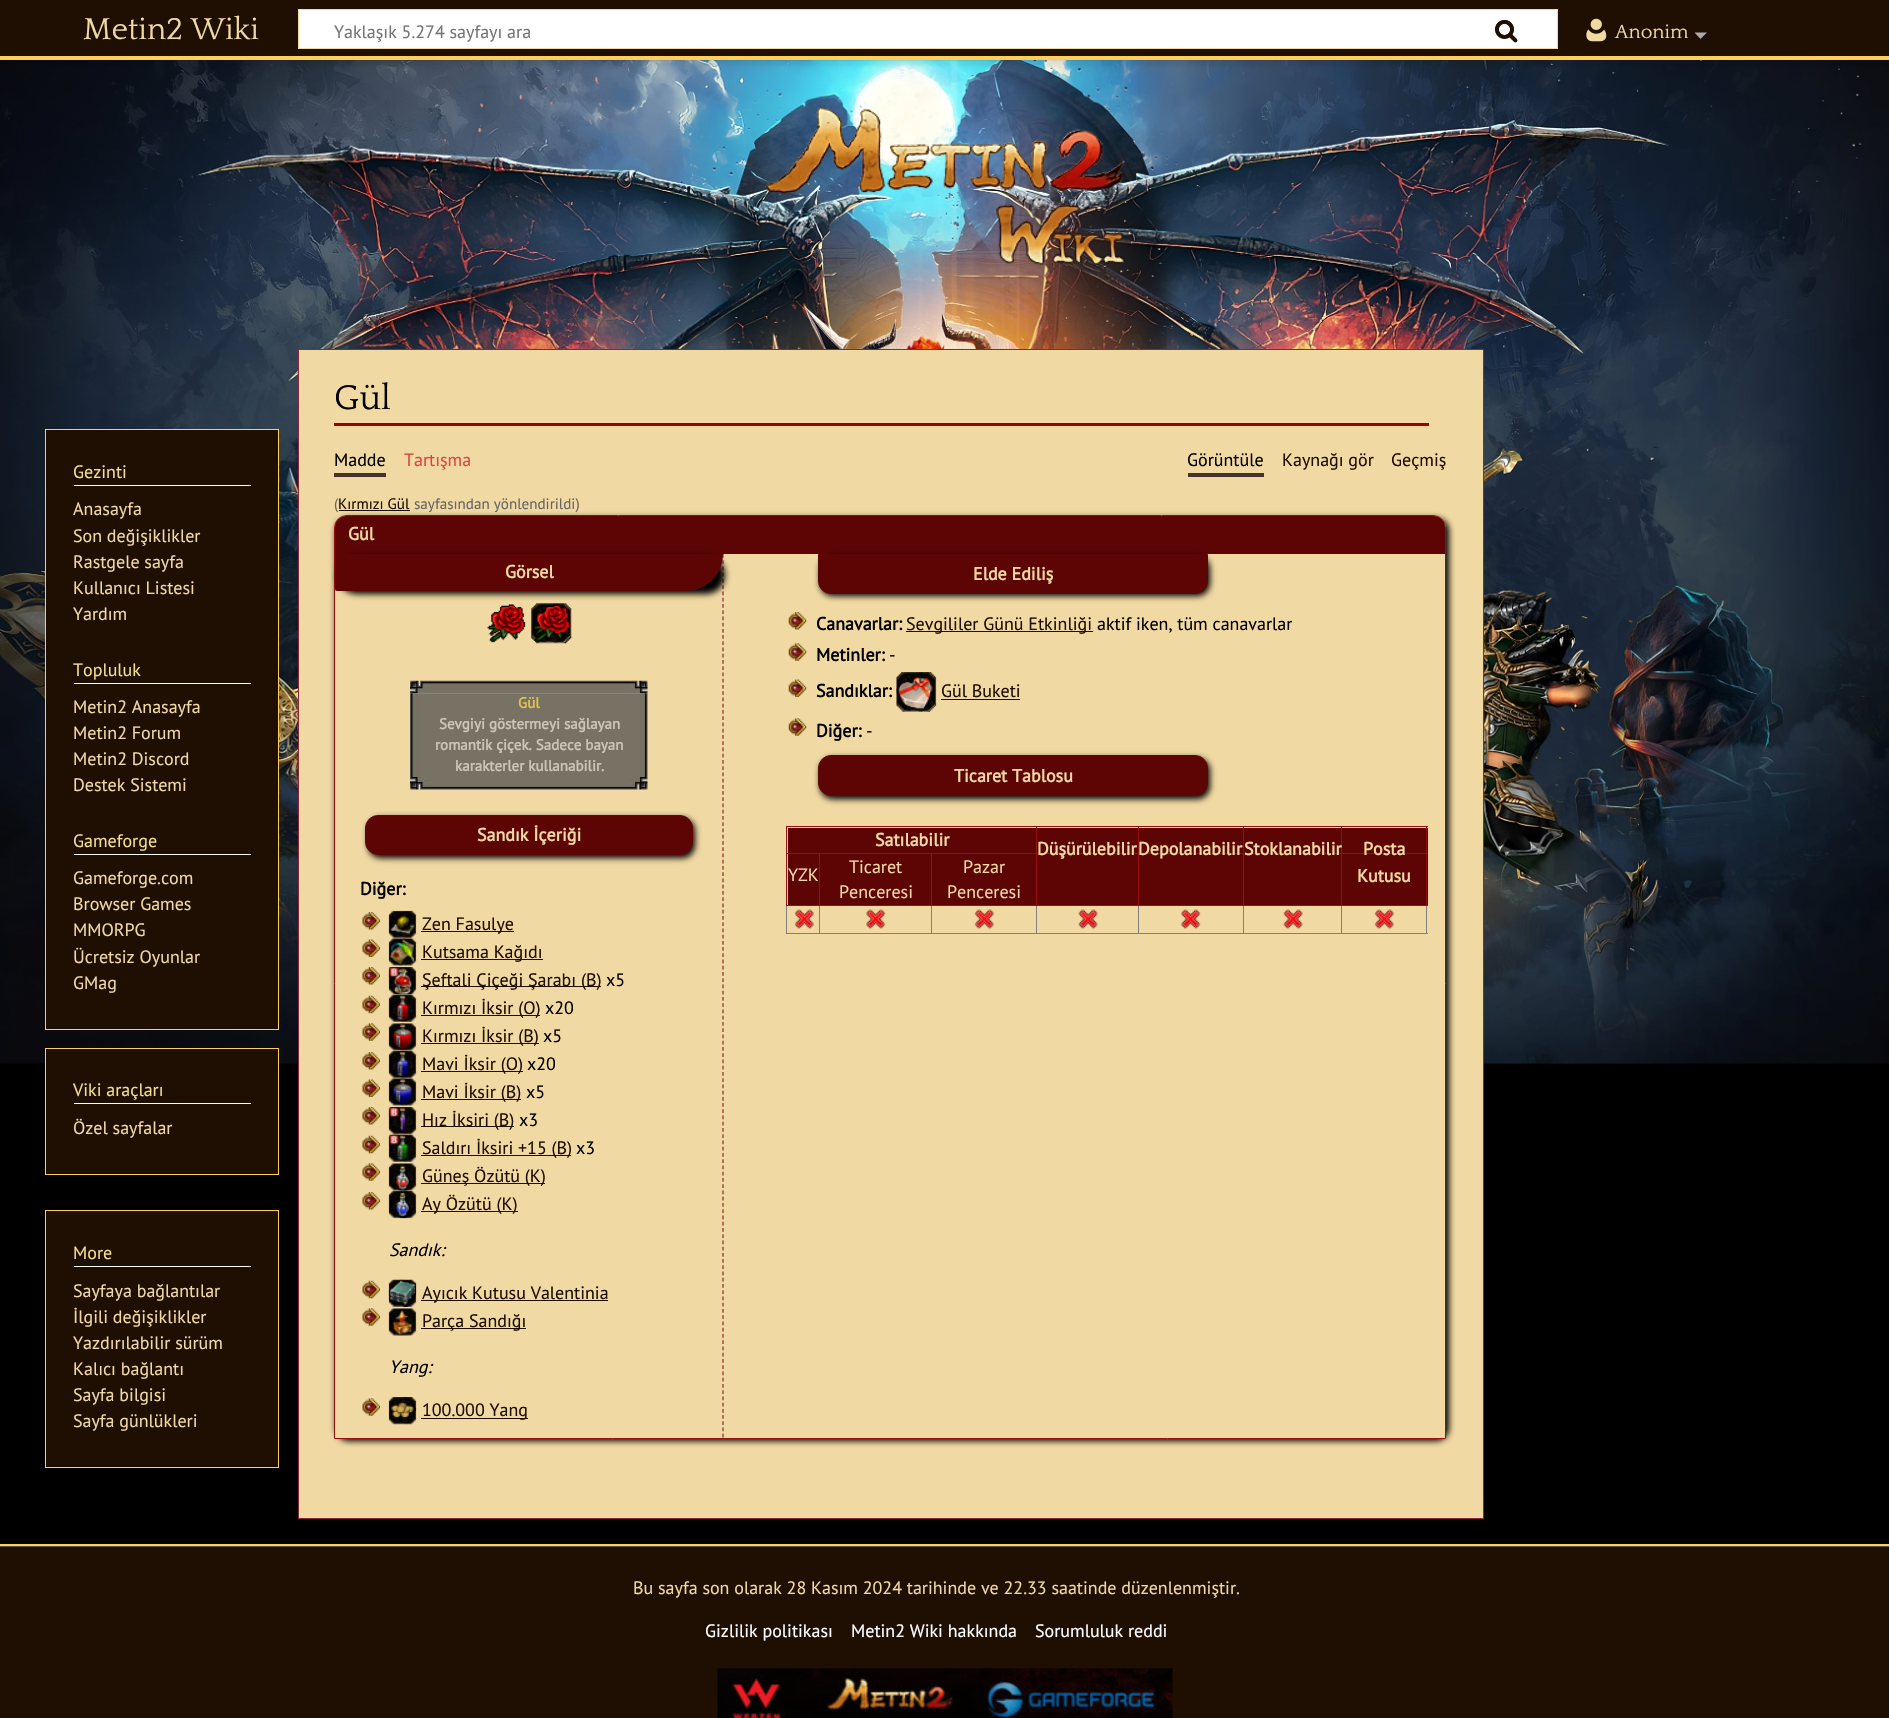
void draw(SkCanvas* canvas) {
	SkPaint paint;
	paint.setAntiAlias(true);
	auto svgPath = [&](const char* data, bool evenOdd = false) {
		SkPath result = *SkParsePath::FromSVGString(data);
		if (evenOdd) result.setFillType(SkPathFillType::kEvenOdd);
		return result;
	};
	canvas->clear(0xff000000);
	canvas->drawImageRect(SkImages::DeferredFromEncodedData(SkData::MakeFromFileName("img1.png")), SkRect::MakeXYWH(0, 60, 1889, 1005), SkSamplingOptions());
	paint.setColor(0x33000000);
	paint.setMaskFilter(SkMaskFilter::MakeBlur(kNormal_SkBlurStyle, 1));
	canvas->drawRect(SkRect::MakeXYWH(0, 56, 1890, 4), paint);
	paint.setMaskFilter(nullptr);
	paint.setColor(0x12000000);
	paint.setMaskFilter(SkMaskFilter::MakeBlur(kNormal_SkBlurStyle, 2));
	canvas->drawRect(SkRect::MakeXYWH(-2, 58, 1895, 8), paint);
	paint.setMaskFilter(nullptr);
	paint.setColor(0xff1f0e02);
	canvas->drawRect(SkRect::MakeXYWH(0, 0, 1889, 56), paint);
	SkFont f1(fontMgr->matchFamilyStyle("Quattrocento", SkFontStyle::Normal()), 31.5);
	f1.setSubpixel(true);
	paint.setColor(0xfff0d9a2);
	canvas->drawString("Metin2 Wiki", 83, 39, f1, paint);
	paint.setColor(0xffffffff);
	canvas->drawRect(SkRect::MakeXYWH(298.5, 9.5, 1259, 39), paint);
	paint.setStroke(true);
	paint.setStrokeWidth(1);
	paint.setColor(0xfff0d9a2);
	canvas->drawRect(SkRect::MakeXYWH(298.5, 9.5, 1259, 39), paint);
	canvas->drawImageRect(SkImages::DeferredFromEncodedData(SkData::MakeFromFileName("img2.png")), SkRect::MakeXYWH(1495, 20, 23, 23), SkSamplingOptions());
	SkFont f2(fontMgr->matchFamilyStyle("PT Sans", SkFontStyle::Normal()), 18);
	f2.setSubpixel(true);
	paint.setStroke(false);
	paint.setColor(0xff757575);
	canvas->drawString("Yaklaşık 5.274 sayfayı ara", 334, 38, f2, paint);
	canvas->drawImageRect(SkImages::DeferredFromEncodedData(SkData::MakeFromFileName("img3.png")), SkRect::MakeXYWH(1495, 20, 23, 23), SkSamplingOptions());
	canvas->drawImageRect(SkImages::DeferredFromEncodedData(SkData::MakeFromFileName("img4.png")), SkRect::MakeXYWH(1586, 18, 21, 24), SkSamplingOptions());
	SkFont f3(fontMgr->matchFamilyStyle("Quattrocento", SkFontStyle::Normal()), 20);
	f3.setSubpixel(true);
	paint.setColor(0xfff0d9a2);
	canvas->drawString("Anonim", 1615, 38, f3, paint);
	paint.setColor(0xffaaaaaa);
	canvas->drawPath(svgPath("M1707 32.5L1700.5 39L1694.5 32.5Z"), paint);
	paint.setColor(0xfffece58);
	canvas->drawRect(SkRect::MakeXYWH(0, 56, 1889, 4), paint);
	canvas->drawImageRect(SkImages::DeferredFromEncodedData(SkData::MakeFromFileName("img5.png")), SkRect::MakeXYWH(765, 107, 360, 158), SkSamplingOptions());
	canvas->drawRect(SkRect::MakeXYWH(0, 1544, 1889, 2), paint);
	paint.setColor(0xff1f0e02);
	canvas->drawRect(SkRect::MakeXYWH(45.5, 429.5, 233, 600), paint);
	paint.setStroke(true);
	paint.setColor(0xfffece58);
	canvas->drawRect(SkRect::MakeXYWH(45.5, 429.5, 233, 600), paint);
	paint.setStroke(false);
	paint.setColor(0xffffffff);
	canvas->drawRect(SkRect::MakeXYWH(74, 485, 177, 1), paint);
	paint.setColor(0xfff1de8e);
	canvas->drawString("Gezinti", 73, 478, f2, paint);
	paint.setColor(0xfff0d9a2);
	canvas->drawString("Anasayfa", 73, 515, f2, paint);
	canvas->drawString("Son değişiklikler", 73, 542, f2, paint);
	canvas->drawString("Rastgele sayfa", 73, 568, f2, paint);
	canvas->drawString("Kullanıcı Listesi", 73, 594, f2, paint);
	canvas->drawString("Yardım", 73, 620, f2, paint);
	paint.setColor(0xffffffff);
	canvas->drawRect(SkRect::MakeXYWH(74, 683, 177, 1), paint);
	paint.setColor(0xfff1de8e);
	canvas->drawString("Topluluk", 73, 676, f2, paint);
	paint.setColor(0xfff0d9a2);
	canvas->drawString("Metin2 Anasayfa", 73, 713, f2, paint);
	canvas->drawString("Metin2 Forum", 73, 739, f2, paint);
	canvas->drawString("Metin2 Discord", 73, 765, f2, paint);
	canvas->drawString("Destek Sistemi", 73, 791, f2, paint);
	paint.setColor(0xffffffff);
	canvas->drawRect(SkRect::MakeXYWH(74, 854, 177, 1), paint);
	paint.setColor(0xfff1de8e);
	canvas->drawString("Gameforge", 73, 847, f2, paint);
	paint.setColor(0xfff0d9a2);
	canvas->drawString("Gameforge.com", 73, 884, f2, paint);
	canvas->drawString("Browser Games", 73, 910, f2, paint);
	canvas->drawString("MMORPG", 73, 936, f2, paint);
	canvas->drawString("Ücretsiz Oyunlar", 73, 963, f2, paint);
	canvas->drawString("GMag", 73, 989, f2, paint);
	paint.setColor(0xff1f0e02);
	canvas->drawRect(SkRect::MakeXYWH(45.5, 1048.5, 233, 126), paint);
	paint.setStroke(true);
	paint.setColor(0xfffece58);
	canvas->drawRect(SkRect::MakeXYWH(45.5, 1048.5, 233, 126), paint);
	paint.setStroke(false);
	paint.setColor(0xffffffff);
	canvas->drawRect(SkRect::MakeXYWH(74, 1103, 177, 1), paint);
	paint.setColor(0xfff1de8e);
	canvas->drawString("Viki araçları", 73, 1096, f2, paint);
	paint.setColor(0xfff0d9a2);
	canvas->drawString("Özel sayfalar", 73, 1134, f2, paint);
	canvas->drawRect(SkRect::MakeXYWH(298.5, 349.5, 1185, 1169), paint);
	paint.setStroke(true);
	paint.setColor(0xff88283a);
	canvas->drawRect(SkRect::MakeXYWH(298.5, 349.5, 1185, 1169), paint);
	paint.setStroke(false);
	paint.setColor(0xff990000);
	canvas->drawRect(SkRect::MakeXYWH(334, 423, 1095, 3), paint);
	SkFont f4(fontMgr->matchFamilyStyle("Quattrocento", SkFontStyle::Normal()), 36);
	f4.setSubpixel(true);
	paint.setColor(0xff000000);
	canvas->drawString("Gül", 334, 409, f4, paint);
	paint.setColor(0xff45342c);
	canvas->drawRect(SkRect::MakeXYWH(334, 473, 52, 4), paint);
	paint.setColor(0xff000000);
	canvas->drawString("Madde", 334, 466, f2, paint);
	paint.setColor(0xffdd4444);
	canvas->drawString("Tartışma", 404, 466, f2, paint);
	paint.setColor(0xff45342c);
	canvas->drawRect(SkRect::MakeXYWH(1188, 473, 76, 4), paint);
	paint.setColor(0xff000000);
	canvas->drawString("Görüntüle", 1187, 466, f2, paint);
	paint.setColor(0xff1e0d00);
	canvas->drawString("Kaynağı gör", 1282, 466, f2, paint);
	canvas->drawString("Geçmiş", 1391, 466, f2, paint);
	canvas->save();
	canvas->clipPath(svgPath("M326 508H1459V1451H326ZM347 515H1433C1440 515 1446 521 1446 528V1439H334V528C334 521 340 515 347 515Z", true), true);
	paint.setColor(0xff000000);
	paint.setMaskFilter(SkMaskFilter::MakeBlur(kNormal_SkBlurStyle, 3));
	canvas->drawRoundRect(SkRect::MakeXYWH(336, 518, 1113, 923), 13, 13, paint);
	paint.setMaskFilter(nullptr);
	canvas->restore();
	SkFont f5(fontMgr->matchFamilyStyle("PT Sans", SkFontStyle::Normal()), 15.1);
	f5.setSubpixel(true);
	paint.setColor(0xff666666);
	canvas->drawString("(", 334, 509, f5, paint);
	paint.setColor(0xff1e0d00);
	canvas->drawRect(SkRect::MakeXYWH(339, 510, 71, 1), paint);
	canvas->drawString("Kırmızı Gül", 338, 509, f5, paint);
	paint.setColor(0xff666666);
	canvas->drawString("sayfasından yönlendirildi)", 414, 509, f5, paint);
	paint.setStroke(true);
	paint.setColor(0xff97100d);
	canvas->drawPath(svgPath("M347 515.5H1433C1440 515.5 1445.5 521 1445.5 528V1438.5H334.5V528C334.5 521 340 515.5 347 515.5Z"), paint);
	paint.setStroke(false);
	paint.setColor(0xff5d0505);
	canvas->drawPath(svgPath("M346 516H1434C1440 516 1445 521 1445 527V554H335V527C335 521 340 516 346 516Z"), paint);
	SkFont f6(fontMgr->matchFamilyStyle("PT Sans", SkFontStyle::Bold()), 18);
	f6.setSubpixel(true);
	paint.setColor(0xfff0d9a2);
	canvas->drawString("Gül", 348, 540, f6, paint);
	paint.setStroke(true);
	paint.setStrokeWidth(1.2);
	paint.setColor(0xff88283a);
	paint.setPathEffect(SkDashPathEffect::Make({{3.75f, 2.49f}}, 0));
	canvas->drawPath(svgPath("M723 554V1437.5"), paint);
	paint.setPathEffect(nullptr);
	paint.setStroke(false);
	paint.setColor(0xff000000);
	paint.setMaskFilter(SkMaskFilter::MakeBlur(kNormal_SkBlurStyle, 3));
	canvas->drawRoundRect(SkRect::MakeXYWH(338, 556, 387, 38), 38, 38, paint);
	paint.setMaskFilter(nullptr);
	paint.setColor(0xff5d0505);
	canvas->drawPath(svgPath("M335 554H723C723 574.5 706.5 591 686 591H337C336 591 335 590 335 589Z"), paint);
	paint.setColor(0xfff0d9a2);
	canvas->drawString("Görsel", 505, 578, f6, paint);
	canvas->drawImageRect(SkImages::DeferredFromEncodedData(SkData::MakeFromFileName("img6.png")), SkRect::MakeXYWH(487, 604, 39, 39), SkSamplingOptions());
	canvas->drawImageRect(SkImages::DeferredFromEncodedData(SkData::MakeFromFileName("img7.png")), SkRect::MakeXYWH(531, 603, 41, 41), SkSamplingOptions());
	canvas->drawImageRect(SkImages::DeferredFromEncodedData(SkData::MakeFromFileName("img8.png")), SkRect::MakeXYWH(532, 604, 39, 39), SkSamplingOptions());
	canvas->drawImageRect(SkImages::DeferredFromEncodedData(SkData::MakeFromFileName("img9.png")), SkRect::MakeXYWH(410, 680, 238, 14), SkSamplingOptions());
	canvas->drawImageRect(SkImages::DeferredFromEncodedData(SkData::MakeFromFileName("img10.png")), SkRect::MakeXYWH(410, 693, 238, 84), SkSamplingOptions());
	SkFont f7(fontMgr->matchFamilyStyle("PT Sans", SkFontStyle::Bold()), 15);
	f7.setSubpixel(true);
	paint.setColor(0xffdec257);
	canvas->drawString("Gül", 518, 708, f7, paint);
	paint.setColor(0xffcbc5b7);
	canvas->drawString("Sevgiyi göstermeyi sağlayan", 439, 729, f7, paint);
	canvas->drawString("romantik çiçek. Sadece bayan", 435, 750, f7, paint);
	canvas->drawString("karakterler kullanabilir.", 455, 771, f7, paint);
	canvas->drawImageRect(SkImages::DeferredFromEncodedData(SkData::MakeFromFileName("img11.png")), SkRect::MakeXYWH(410, 777, 238, 13), SkSamplingOptions());
	paint.setColor(0xff000000);
	paint.setMaskFilter(SkMaskFilter::MakeBlur(kNormal_SkBlurStyle, 3));
	canvas->drawRoundRect(SkRect::MakeXYWH(368, 818, 327, 40), 13, 13, paint);
	paint.setMaskFilter(nullptr);
	paint.setColor(0xff5d0505);
	canvas->drawRoundRect(SkRect::MakeXYWH(365.5, 815.5, 327, 39), 12.5, 12.5, paint);
	paint.setStroke(true);
	paint.setStrokeWidth(1);
	canvas->drawRoundRect(SkRect::MakeXYWH(365.5, 815.5, 327, 39), 12.5, 12.5, paint);
	paint.setStroke(false);
	paint.setColor(0xfff0d9a2);
	canvas->drawString("Sandık İçeriği", 477, 841, f6, paint);
	paint.setColor(0xff000000);
	canvas->drawString("Diğer:", 360, 895, f6, paint);
	canvas->drawImageRect(SkImages::DeferredFromEncodedData(SkData::MakeFromFileName("img12.png")), SkRect::MakeXYWH(362, 912, 18, 18), SkSamplingOptions());
	canvas->drawImageRect(SkImages::DeferredFromEncodedData(SkData::MakeFromFileName("img13.png")), SkRect::MakeXYWH(388, 910, 29, 29), SkSamplingOptions());
	canvas->drawImageRect(SkImages::DeferredFromEncodedData(SkData::MakeFromFileName("img14.png")), SkRect::MakeXYWH(391, 914, 25, 21), SkSamplingOptions());
	paint.setColor(0xff1e0d00);
	canvas->drawRect(SkRect::MakeXYWH(421, 931, 93, 1), paint);
	canvas->drawString("Zen Fasulye", 422, 930, f2, paint);
	canvas->drawImageRect(SkImages::DeferredFromEncodedData(SkData::MakeFromFileName("img15.png")), SkRect::MakeXYWH(362, 939, 18, 18), SkSamplingOptions());
	canvas->drawImageRect(SkImages::DeferredFromEncodedData(SkData::MakeFromFileName("img16.png")), SkRect::MakeXYWH(388, 938, 29, 28), SkSamplingOptions());
	canvas->drawImageRect(SkImages::DeferredFromEncodedData(SkData::MakeFromFileName("img17.png")), SkRect::MakeXYWH(389, 938, 27, 28), SkSamplingOptions());
	canvas->drawRect(SkRect::MakeXYWH(421, 959, 122, 1), paint);
	canvas->drawString("Kutsama Kağıdı", 422, 958, f2, paint);
	canvas->drawImageRect(SkImages::DeferredFromEncodedData(SkData::MakeFromFileName("img12.png")), SkRect::MakeXYWH(362, 967, 18, 18), SkSamplingOptions());
	canvas->drawImageRect(SkImages::DeferredFromEncodedData(SkData::MakeFromFileName("img18.png")), SkRect::MakeXYWH(388, 967, 29, 28), SkSamplingOptions());
	canvas->drawImageRect(SkImages::DeferredFromEncodedData(SkData::MakeFromFileName("img19.png")), SkRect::MakeXYWH(388, 967, 27, 28), SkSamplingOptions());
	canvas->drawRect(SkRect::MakeXYWH(421, 986, 180, 1), paint);
	canvas->drawString("Şeftali Çiçeği Şarabı (B)", 422, 986, f2, paint);
	paint.setColor(0xff000000);
	canvas->drawString("x5", 606, 986, f2, paint);
	canvas->drawImageRect(SkImages::DeferredFromEncodedData(SkData::MakeFromFileName("img20.png")), SkRect::MakeXYWH(362, 995, 18, 19), SkSamplingOptions());
	canvas->drawImageRect(SkImages::DeferredFromEncodedData(SkData::MakeFromFileName("img21.png")), SkRect::MakeXYWH(388, 994, 29, 28), SkSamplingOptions());
	canvas->drawImageRect(SkImages::DeferredFromEncodedData(SkData::MakeFromFileName("img22.png")), SkRect::MakeXYWH(396, 994, 13, 28), SkSamplingOptions());
	paint.setColor(0xff1e0d00);
	canvas->drawRect(SkRect::MakeXYWH(421, 1015, 119, 1), paint);
	canvas->drawString("Kırmızı İksir (O)", 422, 1014, f2, paint);
	paint.setColor(0xff000000);
	canvas->drawString("x20", 545, 1014, f2, paint);
	canvas->drawImageRect(SkImages::DeferredFromEncodedData(SkData::MakeFromFileName("img23.png")), SkRect::MakeXYWH(362, 1023, 18, 18), SkSamplingOptions());
	canvas->drawImageRect(SkImages::DeferredFromEncodedData(SkData::MakeFromFileName("img24.png")), SkRect::MakeXYWH(388, 1023, 29, 28), SkSamplingOptions());
	canvas->drawImageRect(SkImages::DeferredFromEncodedData(SkData::MakeFromFileName("img25.png")), SkRect::MakeXYWH(392, 1023, 21, 28), SkSamplingOptions());
	paint.setColor(0xff1e0d00);
	canvas->drawRect(SkRect::MakeXYWH(421, 1043, 118, 1), paint);
	canvas->drawString("Kırmızı İksir (B)", 422, 1042, f2, paint);
	paint.setColor(0xff000000);
	canvas->drawString("x5", 543, 1042, f2, paint);
	canvas->drawImageRect(SkImages::DeferredFromEncodedData(SkData::MakeFromFileName("img12.png")), SkRect::MakeXYWH(362, 1052, 18, 18), SkSamplingOptions());
	canvas->drawImageRect(SkImages::DeferredFromEncodedData(SkData::MakeFromFileName("img26.png")), SkRect::MakeXYWH(388, 1050, 29, 29), SkSamplingOptions());
	canvas->drawImageRect(SkImages::DeferredFromEncodedData(SkData::MakeFromFileName("img27.png")), SkRect::MakeXYWH(396, 1051, 13, 27), SkSamplingOptions());
	paint.setColor(0xff1e0d00);
	canvas->drawRect(SkRect::MakeXYWH(421, 1071, 102, 1), paint);
	canvas->drawString("Mavi İksir (O)", 422, 1070, f2, paint);
	paint.setColor(0xff000000);
	canvas->drawString("x20", 527, 1070, f2, paint);
	canvas->drawImageRect(SkImages::DeferredFromEncodedData(SkData::MakeFromFileName("img15.png")), SkRect::MakeXYWH(362, 1079, 18, 18), SkSamplingOptions());
	canvas->drawImageRect(SkImages::DeferredFromEncodedData(SkData::MakeFromFileName("img16.png")), SkRect::MakeXYWH(388, 1078, 29, 28), SkSamplingOptions());
	canvas->drawImageRect(SkImages::DeferredFromEncodedData(SkData::MakeFromFileName("img28.png")), SkRect::MakeXYWH(392, 1078, 21, 28), SkSamplingOptions());
	paint.setColor(0xff1e0d00);
	canvas->drawRect(SkRect::MakeXYWH(421, 1099, 100, 1), paint);
	canvas->drawString("Mavi İksir (B)", 422, 1098, f2, paint);
	paint.setColor(0xff000000);
	canvas->drawString("x5", 526, 1098, f2, paint);
	canvas->drawImageRect(SkImages::DeferredFromEncodedData(SkData::MakeFromFileName("img12.png")), SkRect::MakeXYWH(362, 1107, 18, 18), SkSamplingOptions());
	canvas->drawImageRect(SkImages::DeferredFromEncodedData(SkData::MakeFromFileName("img18.png")), SkRect::MakeXYWH(388, 1107, 29, 28), SkSamplingOptions());
	canvas->drawImageRect(SkImages::DeferredFromEncodedData(SkData::MakeFromFileName("img29.png")), SkRect::MakeXYWH(388, 1107, 19, 27), SkSamplingOptions());
	paint.setColor(0xff1e0d00);
	canvas->drawRect(SkRect::MakeXYWH(421, 1126, 93, 1), paint);
	canvas->drawString("Hız İksiri (B)", 422, 1126, f2, paint);
	paint.setColor(0xff000000);
	canvas->drawString("x3", 519, 1126, f2, paint);
	canvas->drawImageRect(SkImages::DeferredFromEncodedData(SkData::MakeFromFileName("img20.png")), SkRect::MakeXYWH(362, 1135, 18, 19), SkSamplingOptions());
	canvas->drawImageRect(SkImages::DeferredFromEncodedData(SkData::MakeFromFileName("img30.png")), SkRect::MakeXYWH(388, 1134, 29, 28), SkSamplingOptions());
	canvas->drawImageRect(SkImages::DeferredFromEncodedData(SkData::MakeFromFileName("img31.png")), SkRect::MakeXYWH(388, 1134, 21, 28), SkSamplingOptions());
	paint.setColor(0xff1e0d00);
	canvas->drawRect(SkRect::MakeXYWH(421, 1155, 150, 1), paint);
	canvas->drawString("Saldırı İksiri +15 (B)", 422, 1154, f2, paint);
	paint.setColor(0xff000000);
	canvas->drawString("x3", 576, 1154, f2, paint);
	canvas->drawImageRect(SkImages::DeferredFromEncodedData(SkData::MakeFromFileName("img32.png")), SkRect::MakeXYWH(362, 1163, 18, 18), SkSamplingOptions());
	canvas->drawImageRect(SkImages::DeferredFromEncodedData(SkData::MakeFromFileName("img33.png")), SkRect::MakeXYWH(388, 1163, 29, 28), SkSamplingOptions());
	canvas->drawImageRect(SkImages::DeferredFromEncodedData(SkData::MakeFromFileName("img34.png")), SkRect::MakeXYWH(395, 1164, 16, 27), SkSamplingOptions());
	paint.setColor(0xff1e0d00);
	canvas->drawRect(SkRect::MakeXYWH(421, 1183, 124, 1), paint);
	canvas->drawString("Güneş Özütü (K)", 422, 1182, f2, paint);
	canvas->drawImageRect(SkImages::DeferredFromEncodedData(SkData::MakeFromFileName("img12.png")), SkRect::MakeXYWH(362, 1192, 18, 18), SkSamplingOptions());
	canvas->drawImageRect(SkImages::DeferredFromEncodedData(SkData::MakeFromFileName("img35.png")), SkRect::MakeXYWH(388, 1190, 29, 29), SkSamplingOptions());
	canvas->drawImageRect(SkImages::DeferredFromEncodedData(SkData::MakeFromFileName("img36.png")), SkRect::MakeXYWH(395, 1191, 16, 28), SkSamplingOptions());
	canvas->drawRect(SkRect::MakeXYWH(421, 1211, 97, 1), paint);
	canvas->drawString("Ay Özütü (K)", 422, 1210, f2, paint);
	SkFont f8(fontMgr->matchFamilyStyle("PT Sans", SkFontStyle::Italic()), 18);
	f8.setSubpixel(true);
	paint.setColor(0xff000000);
	canvas->drawString("Sandık:", 389, 1256, f8, paint);
	canvas->drawImageRect(SkImages::DeferredFromEncodedData(SkData::MakeFromFileName("img20.png")), SkRect::MakeXYWH(362, 1280, 18, 19), SkSamplingOptions());
	canvas->drawImageRect(SkImages::DeferredFromEncodedData(SkData::MakeFromFileName("img37.png")), SkRect::MakeXYWH(388, 1279, 29, 28), SkSamplingOptions());
	canvas->drawImageRect(SkImages::DeferredFromEncodedData(SkData::MakeFromFileName("img38.png")), SkRect::MakeXYWH(388, 1279, 29, 28), SkSamplingOptions());
	paint.setColor(0xff1e0d00);
	canvas->drawRect(SkRect::MakeXYWH(421, 1300, 187, 1), paint);
	canvas->drawString("Ayıcık Kutusu Valentinia", 422, 1299, f2, paint);
	canvas->drawImageRect(SkImages::DeferredFromEncodedData(SkData::MakeFromFileName("img23.png")), SkRect::MakeXYWH(362, 1308, 18, 18), SkSamplingOptions());
	canvas->drawImageRect(SkImages::DeferredFromEncodedData(SkData::MakeFromFileName("img24.png")), SkRect::MakeXYWH(388, 1308, 29, 28), SkSamplingOptions());
	canvas->drawImageRect(SkImages::DeferredFromEncodedData(SkData::MakeFromFileName("img39.png")), SkRect::MakeXYWH(392, 1308, 21, 28), SkSamplingOptions());
	canvas->drawRect(SkRect::MakeXYWH(421, 1328, 105, 1), paint);
	canvas->drawString("Parça Sandığı", 422, 1327, f2, paint);
	paint.setColor(0xff000000);
	canvas->drawString("Yang:", 389, 1373, f8, paint);
	canvas->drawImageRect(SkImages::DeferredFromEncodedData(SkData::MakeFromFileName("img23.png")), SkRect::MakeXYWH(362, 1398, 18, 18), SkSamplingOptions());
	canvas->drawImageRect(SkImages::DeferredFromEncodedData(SkData::MakeFromFileName("img18.png")), SkRect::MakeXYWH(388, 1397, 29, 28), SkSamplingOptions());
	canvas->drawImageRect(SkImages::DeferredFromEncodedData(SkData::MakeFromFileName("img40.png")), SkRect::MakeXYWH(391, 1402, 26, 16), SkSamplingOptions());
	paint.setColor(0xff1e0d00);
	canvas->drawRect(SkRect::MakeXYWH(421, 1418, 107, 1), paint);
	canvas->drawString("100.000 Yang", 422, 1416, f2, paint);
	paint.setColor(0xff000000);
	paint.setMaskFilter(SkMaskFilter::MakeBlur(kNormal_SkBlurStyle, 3));
	canvas->drawRoundRect(SkRect::MakeXYWH(820, 556, 390, 40), 13, 13, paint);
	paint.setMaskFilter(nullptr);
	paint.setColor(0xff5d0505);
	canvas->drawPath(svgPath("M818.5 554.5H1207.5V581C1207.5 588 1202 593.5 1195 593.5H831C824 593.5 818.5 588 818.5 581Z"), paint);
	paint.setStroke(true);
	canvas->drawPath(svgPath("M818.5 554.5H1207.5V581C1207.5 588 1202 593.5 1195 593.5H831C824 593.5 818.5 588 818.5 581Z"), paint);
	paint.setStroke(false);
	paint.setColor(0xfff0d9a2);
	canvas->drawString("Elde Ediliş", 973, 580, f6, paint);
	canvas->drawImageRect(SkImages::DeferredFromEncodedData(SkData::MakeFromFileName("img41.png")), SkRect::MakeXYWH(788, 612, 19, 18), SkSamplingOptions());
	paint.setColor(0xff000000);
	canvas->drawString("Canavarlar:", 816, 630, f6, paint);
	paint.setColor(0xff1e0d00);
	canvas->drawRect(SkRect::MakeXYWH(906, 631, 187, 1), paint);
	canvas->drawString("Sevgililer Günü Etkinliği", 906, 630, f2, paint);
	paint.setColor(0xff000000);
	canvas->drawString("aktif iken, tüm canavarlar", 1097, 630, f2, paint);
	canvas->drawImageRect(SkImages::DeferredFromEncodedData(SkData::MakeFromFileName("img42.png")), SkRect::MakeXYWH(788, 643, 19, 18), SkSamplingOptions());
	canvas->drawString("Metinler:", 816, 661, f6, paint);
	canvas->drawString("-", 889, 661, f2, paint);
	canvas->drawImageRect(SkImages::DeferredFromEncodedData(SkData::MakeFromFileName("img43.png")), SkRect::MakeXYWH(788, 679, 19, 18), SkSamplingOptions());
	canvas->drawString("Sandıklar:", 816, 697, f6, paint);
	canvas->drawImageRect(SkImages::DeferredFromEncodedData(SkData::MakeFromFileName("img44.png")), SkRect::MakeXYWH(896, 672, 41, 40), SkSamplingOptions());
	canvas->drawImageRect(SkImages::DeferredFromEncodedData(SkData::MakeFromFileName("img45.png")), SkRect::MakeXYWH(896, 676, 37, 35), SkSamplingOptions());
	paint.setColor(0xff1e0d00);
	canvas->drawString("Gül Buketi", 941, 697, f2, paint);
	canvas->drawRect(SkRect::MakeXYWH(941, 699, 79, 1), paint);
	canvas->drawImageRect(SkImages::DeferredFromEncodedData(SkData::MakeFromFileName("img42.png")), SkRect::MakeXYWH(788, 718, 19, 18), SkSamplingOptions());
	paint.setColor(0xff000000);
	canvas->drawString("Diğer:", 816, 737, f6, paint);
	canvas->drawString("-", 866, 737, f2, paint);
	paint.setMaskFilter(SkMaskFilter::MakeBlur(kNormal_SkBlurStyle, 3));
	canvas->drawRoundRect(SkRect::MakeXYWH(820, 758, 390, 41), 13, 13, paint);
	paint.setMaskFilter(nullptr);
	paint.setColor(0xff5d0505);
	canvas->drawRoundRect(SkRect::MakeXYWH(818.5, 755.5, 389, 40), 12.5, 12.5, paint);
	paint.setStroke(true);
	canvas->drawRoundRect(SkRect::MakeXYWH(818.5, 755.5, 389, 40), 12.5, 12.5, paint);
	paint.setStroke(false);
	paint.setColor(0xfff0d9a2);
	canvas->drawString("Ticaret Tablosu", 954, 782, f6, paint);
	paint.setColor(0xff808080);
	canvas->drawRect(SkRect::MakeXYWH(1426, 906, 1, 28), paint);
	canvas->drawRect(SkRect::MakeXYWH(786, 933, 642, 1), paint);
	canvas->drawRect(SkRect::MakeXYWH(786, 906, 1, 28), paint);
	paint.setColor(0xff5d0505);
	canvas->drawRect(SkRect::MakeXYWH(788, 828, 640, 25), paint);
	paint.setColor(0xff97100d);
	canvas->drawRect(SkRect::MakeXYWH(786, 826, 642, 1), paint);
	canvas->drawRect(SkRect::MakeXYWH(786, 853, 642, 1), paint);
	canvas->drawRect(SkRect::MakeXYWH(786, 853, 1, 53), paint);
	canvas->drawRect(SkRect::MakeXYWH(786, 826, 1, 28), paint);
	paint.setColor(0xfff0d9a2);
	canvas->drawString("Satılabilir", 875, 846, f6, paint);
	paint.setColor(0xff5d0505);
	canvas->drawRect(SkRect::MakeXYWH(788, 854, 640, 51), paint);
	paint.setColor(0xff97100d);
	canvas->drawRect(SkRect::MakeXYWH(1426, 826, 1, 80), paint);
	paint.setColor(0xff808080);
	canvas->drawRect(SkRect::MakeXYWH(1341, 905, 1, 29), paint);
	paint.setColor(0xff97100d);
	canvas->drawRect(SkRect::MakeXYWH(1341, 905, 87, 1), paint);
	canvas->drawRect(SkRect::MakeXYWH(1341, 826, 1, 80), paint);
	paint.setColor(0xff808080);
	canvas->drawRect(SkRect::MakeXYWH(1243, 905, 1, 29), paint);
	paint.setColor(0xff97100d);
	canvas->drawRect(SkRect::MakeXYWH(1243, 905, 100, 1), paint);
	canvas->drawRect(SkRect::MakeXYWH(1243, 826, 1, 80), paint);
	paint.setColor(0xff808080);
	canvas->drawRect(SkRect::MakeXYWH(1138, 905, 1, 29), paint);
	paint.setColor(0xff97100d);
	canvas->drawRect(SkRect::MakeXYWH(1138, 905, 106, 1), paint);
	canvas->drawRect(SkRect::MakeXYWH(1138, 826, 1, 80), paint);
	paint.setColor(0xff808080);
	canvas->drawRect(SkRect::MakeXYWH(931, 905, 1, 29), paint);
	canvas->drawRect(SkRect::MakeXYWH(1036, 905, 1, 29), paint);
	paint.setColor(0xff97100d);
	canvas->drawRect(SkRect::MakeXYWH(931, 905, 107, 1), paint);
	canvas->drawRect(SkRect::MakeXYWH(1036, 905, 103, 1), paint);
	canvas->drawRect(SkRect::MakeXYWH(1036, 826, 1, 80), paint);
	paint.setColor(0xfff0d9a2);
	canvas->drawString("Düşürülebilir", 1037, 855, f6, paint);
	canvas->drawString("Depolanabilir", 1138, 855, f6, paint);
	canvas->drawString("Stoklanabilir", 1244, 855, f6, paint);
	canvas->drawString("Posta", 1363, 855, f6, paint);
	canvas->drawString("Kutusu", 1357, 882, f6, paint);
	paint.setColor(0xff97100d);
	canvas->drawRect(SkRect::MakeXYWH(931, 853, 1, 53), paint);
	paint.setColor(0xff808080);
	canvas->drawRect(SkRect::MakeXYWH(819, 905, 1, 29), paint);
	paint.setColor(0xff97100d);
	canvas->drawRect(SkRect::MakeXYWH(819, 905, 114, 1), paint);
	canvas->drawRect(SkRect::MakeXYWH(819, 853, 1, 53), paint);
	canvas->drawRect(SkRect::MakeXYWH(786, 905, 34, 1), paint);
	paint.setColor(0xfff0d9a2);
	canvas->drawString("YZK", 788, 881, f2, paint);
	canvas->drawString("Ticaret", 849, 873, f2, paint);
	canvas->drawString("Penceresi", 839, 898, f2, paint);
	canvas->drawString("Pazar", 963, 873, f2, paint);
	canvas->drawString("Penceresi", 947, 898, f2, paint);
	canvas->drawImageRect(SkImages::DeferredFromEncodedData(SkData::MakeFromFileName("img46.png")), SkRect::MakeXYWH(794, 909, 20, 20), SkSamplingOptions());
	canvas->drawImageRect(SkImages::DeferredFromEncodedData(SkData::MakeFromFileName("img47.png")), SkRect::MakeXYWH(866, 909, 20, 20), SkSamplingOptions());
	canvas->drawImageRect(SkImages::DeferredFromEncodedData(SkData::MakeFromFileName("img46.png")), SkRect::MakeXYWH(974, 909, 20, 20), SkSamplingOptions());
	canvas->drawImageRect(SkImages::DeferredFromEncodedData(SkData::MakeFromFileName("img48.png")), SkRect::MakeXYWH(1078, 909, 20, 20), SkSamplingOptions());
	canvas->drawImageRect(SkImages::DeferredFromEncodedData(SkData::MakeFromFileName("img47.png")), SkRect::MakeXYWH(1181, 909, 20, 20), SkSamplingOptions());
	canvas->drawImageRect(SkImages::DeferredFromEncodedData(SkData::MakeFromFileName("img48.png")), SkRect::MakeXYWH(1283, 909, 20, 20), SkSamplingOptions());
	canvas->drawImageRect(SkImages::DeferredFromEncodedData(SkData::MakeFromFileName("img46.png")), SkRect::MakeXYWH(1374, 909, 20, 20), SkSamplingOptions());
	paint.setColor(0xff1f0e02);
	canvas->drawRect(SkRect::MakeXYWH(45.5, 1210.5, 233, 257), paint);
	paint.setStroke(true);
	paint.setColor(0xfffece58);
	canvas->drawRect(SkRect::MakeXYWH(45.5, 1210.5, 233, 257), paint);
	paint.setStroke(false);
	paint.setColor(0xffffffff);
	canvas->drawRect(SkRect::MakeXYWH(74, 1266, 177, 1), paint);
	paint.setColor(0xfff1de8e);
	canvas->drawString("More", 73, 1259, f2, paint);
	paint.setColor(0xfff0d9a2);
	canvas->drawString("Sayfaya bağlantılar", 73, 1297, f2, paint);
	canvas->drawString("İlgili değişiklikler", 73, 1323, f2, paint);
	canvas->drawString("Yazdırılabilir sürüm", 73, 1349, f2, paint);
	canvas->drawString("Kalıcı bağlantı", 73, 1375, f2, paint);
	canvas->drawString("Sayfa bilgisi", 73, 1401, f2, paint);
	canvas->drawString("Sayfa günlükleri", 73, 1427, f2, paint);
	paint.setColor(0xff1f0e02);
	canvas->drawRect(SkRect::MakeXYWH(0, 1547, 1889, 171), paint);
	paint.setColor(0xff555555);
	canvas->drawRect(SkRect::MakeXYWH(0, 1546, 1889, 1), paint);
	paint.setColor(0xfff0d9a2);
	canvas->drawString("Bu sayfa son olarak 28 Kasım 2024 tarihinde ve 22.33 saatinde düzenlenmiştir.", 633, 1594, f2, paint);
	paint.setColor(0xffffffff);
	canvas->drawString("Gizlilik politikası", 705, 1637, f2, paint);
	canvas->drawString("Metin2 Wiki hakkında", 851, 1637, f2, paint);
	canvas->drawString("Sorumluluk reddi", 1035, 1637, f2, paint);
	canvas->drawImageRect(SkImages::DeferredFromEncodedData(SkData::MakeFromFileName("img49.png")), SkRect::MakeXYWH(717, 1668, 456, 50), SkSamplingOptions());
}
